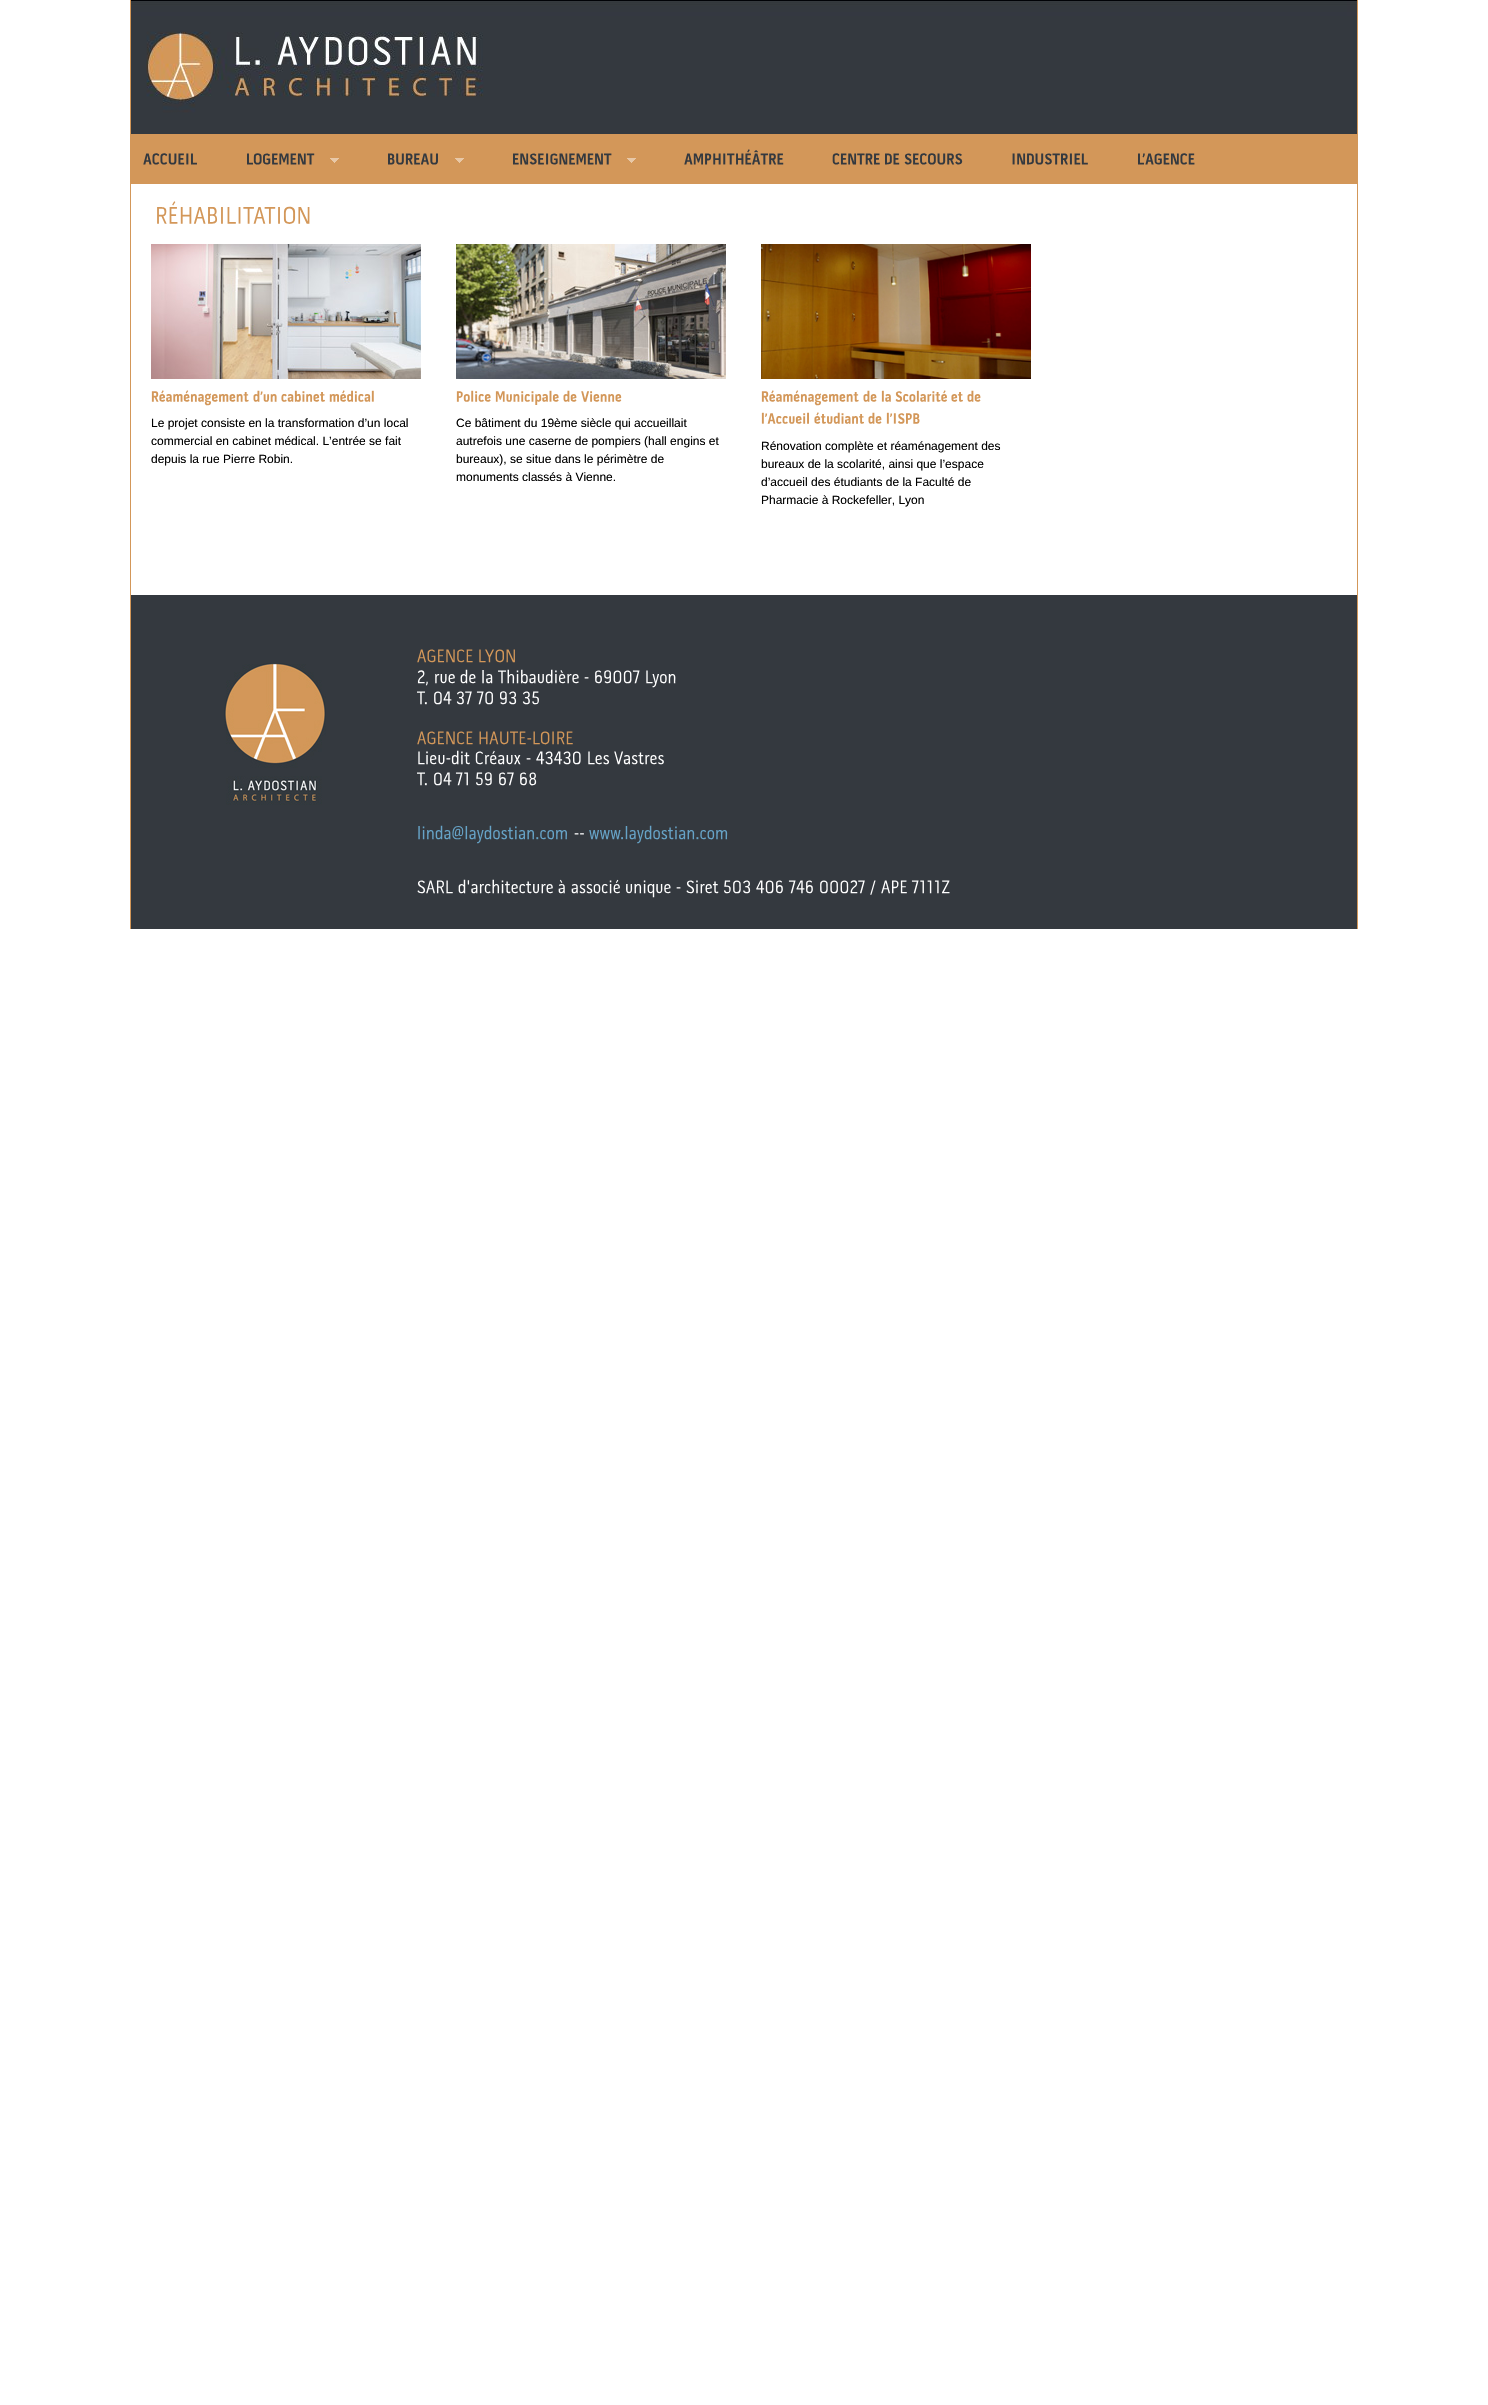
void draw(SkCanvas* canvas) {
	SkPaint paint;
	paint.setAntiAlias(true);
	canvas->clear(0xffffffff);
	paint.setColor(0xffd39759);
	canvas->drawRect(SkRect::MakeXYWH(1357, 0, 1, 929), paint);
	canvas->drawRect(SkRect::MakeXYWH(130, 0, 1, 929), paint);
	canvas->drawRect(SkRect::MakeXYWH(131, 134, 1226, 50), paint);
	canvas->drawImageRect(SkImages::DeferredFromEncodedData(SkData::MakeFromFileName("img1.png")), SkRect::MakeXYWH(131, 0, 1226, 134), SkSamplingOptions());
	canvas->drawImageRect(SkImages::DeferredFromEncodedData(SkData::MakeFromFileName("img2.png")), SkRect::MakeXYWH(143, 153, 54, 12), SkSamplingOptions());
	canvas->drawImageRect(SkImages::DeferredFromEncodedData(SkData::MakeFromFileName("img3.png")), SkRect::MakeXYWH(247, 153, 68, 12), SkSamplingOptions());
	canvas->drawImageRect(SkImages::DeferredFromEncodedData(SkData::MakeFromFileName("img4.png")), SkRect::MakeXYWH(330, 158, 9, 5), SkSamplingOptions());
	canvas->drawImageRect(SkImages::DeferredFromEncodedData(SkData::MakeFromFileName("img5.png")), SkRect::MakeXYWH(388, 153, 50, 12), SkSamplingOptions());
	canvas->drawImageRect(SkImages::DeferredFromEncodedData(SkData::MakeFromFileName("img4.png")), SkRect::MakeXYWH(455, 158, 9, 5), SkSamplingOptions());
	canvas->drawImageRect(SkImages::DeferredFromEncodedData(SkData::MakeFromFileName("img6.png")), SkRect::MakeXYWH(513, 153, 99, 12), SkSamplingOptions());
	canvas->drawImageRect(SkImages::DeferredFromEncodedData(SkData::MakeFromFileName("img4.png")), SkRect::MakeXYWH(627, 158, 9, 5), SkSamplingOptions());
	canvas->drawImageRect(SkImages::DeferredFromEncodedData(SkData::MakeFromFileName("img7.png")), SkRect::MakeXYWH(684, 149, 100, 16), SkSamplingOptions());
	canvas->drawImageRect(SkImages::DeferredFromEncodedData(SkData::MakeFromFileName("img8.png")), SkRect::MakeXYWH(832, 153, 48, 12), SkSamplingOptions());
	canvas->drawImageRect(SkImages::DeferredFromEncodedData(SkData::MakeFromFileName("img9.png")), SkRect::MakeXYWH(885, 153, 15, 12), SkSamplingOptions());
	canvas->drawImageRect(SkImages::DeferredFromEncodedData(SkData::MakeFromFileName("img10.png")), SkRect::MakeXYWH(904, 153, 59, 12), SkSamplingOptions());
	canvas->drawImageRect(SkImages::DeferredFromEncodedData(SkData::MakeFromFileName("img11.png")), SkRect::MakeXYWH(1012, 153, 76, 12), SkSamplingOptions());
	canvas->drawImageRect(SkImages::DeferredFromEncodedData(SkData::MakeFromFileName("img12.png")), SkRect::MakeXYWH(1138, 153, 57, 12), SkSamplingOptions());
	canvas->drawImageRect(SkImages::DeferredFromEncodedData(SkData::MakeFromFileName("img13.png")), SkRect::MakeXYWH(157, 201, 153, 23), SkSamplingOptions());
	canvas->drawImageRect(SkImages::DeferredFromEncodedData(SkData::MakeFromFileName("img14.png")), SkRect::MakeXYWH(151, 244, 270, 135), SkSamplingOptions());
	canvas->drawImageRect(SkImages::DeferredFromEncodedData(SkData::MakeFromFileName("img15.png")), SkRect::MakeXYWH(151, 390, 98, 16), SkSamplingOptions());
	canvas->drawImageRect(SkImages::DeferredFromEncodedData(SkData::MakeFromFileName("img16.png")), SkRect::MakeXYWH(253, 390, 24, 12), SkSamplingOptions());
	canvas->drawImageRect(SkImages::DeferredFromEncodedData(SkData::MakeFromFileName("img17.png")), SkRect::MakeXYWH(281, 390, 44, 12), SkSamplingOptions());
	canvas->drawImageRect(SkImages::DeferredFromEncodedData(SkData::MakeFromFileName("img18.png")), SkRect::MakeXYWH(329, 390, 45, 12), SkSamplingOptions());
	SkFont f1(fontMgr->matchFamilyStyle("Liberation Sans", SkFontStyle::Normal()), 12);
	f1.setSubpixel(true);
	paint.setColor(0xff000000);
	canvas->drawString("Le projet consiste en la transformation d’un local", 151, 427, f1, paint);
	canvas->drawString("commercial en cabinet médical. L’entrée se fait", 151, 445, f1, paint);
	canvas->drawString("depuis la rue Pierre Robin.", 151, 463, f1, paint);
	canvas->drawImageRect(SkImages::DeferredFromEncodedData(SkData::MakeFromFileName("img19.png")), SkRect::MakeXYWH(456, 244, 270, 135), SkSamplingOptions());
	canvas->drawImageRect(SkImages::DeferredFromEncodedData(SkData::MakeFromFileName("img20.png")), SkRect::MakeXYWH(456, 390, 35, 12), SkSamplingOptions());
	canvas->drawImageRect(SkImages::DeferredFromEncodedData(SkData::MakeFromFileName("img21.png")), SkRect::MakeXYWH(495, 390, 64, 15), SkSamplingOptions());
	canvas->drawImageRect(SkImages::DeferredFromEncodedData(SkData::MakeFromFileName("img22.png")), SkRect::MakeXYWH(563, 390, 14, 12), SkSamplingOptions());
	canvas->drawImageRect(SkImages::DeferredFromEncodedData(SkData::MakeFromFileName("img23.png")), SkRect::MakeXYWH(581, 391, 41, 11), SkSamplingOptions());
	canvas->drawString("Ce bâtiment du 19ème siècle qui accueillait", 456, 427, f1, paint);
	canvas->drawString("autrefois une caserne de pompiers (hall engins et", 456, 445, f1, paint);
	canvas->drawString("bureaux), se situe dans le périmètre de", 456, 463, f1, paint);
	canvas->drawString("monuments classés à Vienne.", 456, 481, f1, paint);
	canvas->drawImageRect(SkImages::DeferredFromEncodedData(SkData::MakeFromFileName("img24.png")), SkRect::MakeXYWH(761, 244, 270, 135), SkSamplingOptions());
	canvas->drawImageRect(SkImages::DeferredFromEncodedData(SkData::MakeFromFileName("img15.png")), SkRect::MakeXYWH(761, 390, 98, 16), SkSamplingOptions());
	canvas->drawImageRect(SkImages::DeferredFromEncodedData(SkData::MakeFromFileName("img22.png")), SkRect::MakeXYWH(863, 390, 14, 12), SkSamplingOptions());
	canvas->drawImageRect(SkImages::DeferredFromEncodedData(SkData::MakeFromFileName("img25.png")), SkRect::MakeXYWH(881, 390, 10, 12), SkSamplingOptions());
	canvas->drawImageRect(SkImages::DeferredFromEncodedData(SkData::MakeFromFileName("img26.png")), SkRect::MakeXYWH(895, 390, 52, 12), SkSamplingOptions());
	canvas->drawImageRect(SkImages::DeferredFromEncodedData(SkData::MakeFromFileName("img27.png")), SkRect::MakeXYWH(951, 392, 12, 10), SkSamplingOptions());
	canvas->drawImageRect(SkImages::DeferredFromEncodedData(SkData::MakeFromFileName("img22.png")), SkRect::MakeXYWH(967, 390, 14, 12), SkSamplingOptions());
	canvas->drawImageRect(SkImages::DeferredFromEncodedData(SkData::MakeFromFileName("img28.png")), SkRect::MakeXYWH(761, 412, 48, 12), SkSamplingOptions());
	canvas->drawImageRect(SkImages::DeferredFromEncodedData(SkData::MakeFromFileName("img29.png")), SkRect::MakeXYWH(814, 412, 50, 12), SkSamplingOptions());
	canvas->drawImageRect(SkImages::DeferredFromEncodedData(SkData::MakeFromFileName("img22.png")), SkRect::MakeXYWH(868, 412, 14, 12), SkSamplingOptions());
	canvas->drawImageRect(SkImages::DeferredFromEncodedData(SkData::MakeFromFileName("img30.png")), SkRect::MakeXYWH(886, 412, 34, 12), SkSamplingOptions());
	canvas->drawString("Rénovation complète et réaménagement des", 761, 450, f1, paint);
	canvas->drawString("bureaux de la scolarité, ainsi que l’espace", 761, 468, f1, paint);
	canvas->drawString("d’accueil des étudiants de la Faculté de", 761, 486, f1, paint);
	canvas->drawString("Pharmacie à Rockefeller, Lyon", 761, 504, f1, paint);
	paint.setColor(0xff34393f);
	canvas->drawRect(SkRect::MakeXYWH(131, 595, 1226, 334), paint);
	canvas->drawImageRect(SkImages::DeferredFromEncodedData(SkData::MakeFromFileName("img31.png")), SkRect::MakeXYWH(224, 663, 102, 142), SkSamplingOptions());
	canvas->drawImageRect(SkImages::DeferredFromEncodedData(SkData::MakeFromFileName("img32.png")), SkRect::MakeXYWH(417, 649, 56, 14), SkSamplingOptions());
	canvas->drawImageRect(SkImages::DeferredFromEncodedData(SkData::MakeFromFileName("img33.png")), SkRect::MakeXYWH(479, 649, 36, 14), SkSamplingOptions());
	canvas->drawImageRect(SkImages::DeferredFromEncodedData(SkData::MakeFromFileName("img34.png")), SkRect::MakeXYWH(417, 670, 11, 16), SkSamplingOptions());
	canvas->drawImageRect(SkImages::DeferredFromEncodedData(SkData::MakeFromFileName("img35.png")), SkRect::MakeXYWH(435, 674, 20, 10), SkSamplingOptions());
	canvas->drawImageRect(SkImages::DeferredFromEncodedData(SkData::MakeFromFileName("img36.png")), SkRect::MakeXYWH(460, 669, 16, 15), SkSamplingOptions());
	canvas->drawImageRect(SkImages::DeferredFromEncodedData(SkData::MakeFromFileName("img37.png")), SkRect::MakeXYWH(482, 670, 11, 14), SkSamplingOptions());
	canvas->drawImageRect(SkImages::DeferredFromEncodedData(SkData::MakeFromFileName("img38.png")), SkRect::MakeXYWH(498, 669, 81, 15), SkSamplingOptions());
	canvas->drawImageRect(SkImages::DeferredFromEncodedData(SkData::MakeFromFileName("img39.png")), SkRect::MakeXYWH(584, 677, 5, 2), SkSamplingOptions());
	canvas->drawImageRect(SkImages::DeferredFromEncodedData(SkData::MakeFromFileName("img40.png")), SkRect::MakeXYWH(595, 670, 45, 14), SkSamplingOptions());
	canvas->drawImageRect(SkImages::DeferredFromEncodedData(SkData::MakeFromFileName("img41.png")), SkRect::MakeXYWH(646, 670, 30, 18), SkSamplingOptions());
	canvas->drawImageRect(SkImages::DeferredFromEncodedData(SkData::MakeFromFileName("img42.png")), SkRect::MakeXYWH(417, 691, 10, 14), SkSamplingOptions());
	canvas->drawImageRect(SkImages::DeferredFromEncodedData(SkData::MakeFromFileName("img43.png")), SkRect::MakeXYWH(434, 691, 18, 14), SkSamplingOptions());
	canvas->drawImageRect(SkImages::DeferredFromEncodedData(SkData::MakeFromFileName("img44.png")), SkRect::MakeXYWH(456, 691, 16, 14), SkSamplingOptions());
	canvas->drawImageRect(SkImages::DeferredFromEncodedData(SkData::MakeFromFileName("img45.png")), SkRect::MakeXYWH(476, 691, 17, 14), SkSamplingOptions());
	canvas->drawImageRect(SkImages::DeferredFromEncodedData(SkData::MakeFromFileName("img46.png")), SkRect::MakeXYWH(500, 691, 17, 14), SkSamplingOptions());
	canvas->drawImageRect(SkImages::DeferredFromEncodedData(SkData::MakeFromFileName("img47.png")), SkRect::MakeXYWH(522, 691, 17, 14), SkSamplingOptions());
	canvas->drawImageRect(SkImages::DeferredFromEncodedData(SkData::MakeFromFileName("img32.png")), SkRect::MakeXYWH(417, 731, 56, 14), SkSamplingOptions());
	canvas->drawImageRect(SkImages::DeferredFromEncodedData(SkData::MakeFromFileName("img48.png")), SkRect::MakeXYWH(479, 731, 94, 14), SkSamplingOptions());
	canvas->drawImageRect(SkImages::DeferredFromEncodedData(SkData::MakeFromFileName("img49.png")), SkRect::MakeXYWH(418, 750, 52, 15), SkSamplingOptions());
	canvas->drawImageRect(SkImages::DeferredFromEncodedData(SkData::MakeFromFileName("img50.png")), SkRect::MakeXYWH(475, 750, 46, 15), SkSamplingOptions());
	canvas->drawImageRect(SkImages::DeferredFromEncodedData(SkData::MakeFromFileName("img39.png")), SkRect::MakeXYWH(526, 758, 5, 2), SkSamplingOptions());
	canvas->drawImageRect(SkImages::DeferredFromEncodedData(SkData::MakeFromFileName("img51.png")), SkRect::MakeXYWH(536, 751, 45, 14), SkSamplingOptions());
	canvas->drawImageRect(SkImages::DeferredFromEncodedData(SkData::MakeFromFileName("img52.png")), SkRect::MakeXYWH(588, 751, 22, 14), SkSamplingOptions());
	canvas->drawImageRect(SkImages::DeferredFromEncodedData(SkData::MakeFromFileName("img53.png")), SkRect::MakeXYWH(614, 751, 50, 14), SkSamplingOptions());
	canvas->drawImageRect(SkImages::DeferredFromEncodedData(SkData::MakeFromFileName("img42.png")), SkRect::MakeXYWH(417, 772, 10, 14), SkSamplingOptions());
	canvas->drawImageRect(SkImages::DeferredFromEncodedData(SkData::MakeFromFileName("img43.png")), SkRect::MakeXYWH(434, 772, 18, 14), SkSamplingOptions());
	canvas->drawImageRect(SkImages::DeferredFromEncodedData(SkData::MakeFromFileName("img54.png")), SkRect::MakeXYWH(455, 772, 13, 14), SkSamplingOptions());
	canvas->drawImageRect(SkImages::DeferredFromEncodedData(SkData::MakeFromFileName("img55.png")), SkRect::MakeXYWH(476, 772, 16, 14), SkSamplingOptions());
	canvas->drawImageRect(SkImages::DeferredFromEncodedData(SkData::MakeFromFileName("img56.png")), SkRect::MakeXYWH(499, 772, 15, 14), SkSamplingOptions());
	canvas->drawImageRect(SkImages::DeferredFromEncodedData(SkData::MakeFromFileName("img57.png")), SkRect::MakeXYWH(520, 772, 17, 14), SkSamplingOptions());
	canvas->drawImageRect(SkImages::DeferredFromEncodedData(SkData::MakeFromFileName("img58.png")), SkRect::MakeXYWH(418, 825, 149, 19), SkSamplingOptions());
	canvas->drawImageRect(SkImages::DeferredFromEncodedData(SkData::MakeFromFileName("img59.png")), SkRect::MakeXYWH(574, 833, 10, 2), SkSamplingOptions());
	canvas->drawImageRect(SkImages::DeferredFromEncodedData(SkData::MakeFromFileName("img60.png")), SkRect::MakeXYWH(589, 825, 139, 19), SkSamplingOptions());
	canvas->drawImageRect(SkImages::DeferredFromEncodedData(SkData::MakeFromFileName("img61.png")), SkRect::MakeXYWH(417, 880, 36, 14), SkSamplingOptions());
	canvas->drawImageRect(SkImages::DeferredFromEncodedData(SkData::MakeFromFileName("img62.png")), SkRect::MakeXYWH(458, 879, 95, 15), SkSamplingOptions());
	canvas->drawImageRect(SkImages::DeferredFromEncodedData(SkData::MakeFromFileName("img63.png")), SkRect::MakeXYWH(558, 879, 7, 15), SkSamplingOptions());
	canvas->drawImageRect(SkImages::DeferredFromEncodedData(SkData::MakeFromFileName("img64.png")), SkRect::MakeXYWH(571, 879, 49, 15), SkSamplingOptions());
	canvas->drawImageRect(SkImages::DeferredFromEncodedData(SkData::MakeFromFileName("img65.png")), SkRect::MakeXYWH(626, 880, 45, 18), SkSamplingOptions());
	canvas->drawImageRect(SkImages::DeferredFromEncodedData(SkData::MakeFromFileName("img39.png")), SkRect::MakeXYWH(676, 887, 5, 2), SkSamplingOptions());
	canvas->drawImageRect(SkImages::DeferredFromEncodedData(SkData::MakeFromFileName("img66.png")), SkRect::MakeXYWH(686, 880, 33, 14), SkSamplingOptions());
	canvas->drawImageRect(SkImages::DeferredFromEncodedData(SkData::MakeFromFileName("img67.png")), SkRect::MakeXYWH(724, 880, 27, 14), SkSamplingOptions());
	canvas->drawImageRect(SkImages::DeferredFromEncodedData(SkData::MakeFromFileName("img68.png")), SkRect::MakeXYWH(756, 880, 27, 14), SkSamplingOptions());
	canvas->drawImageRect(SkImages::DeferredFromEncodedData(SkData::MakeFromFileName("img69.png")), SkRect::MakeXYWH(788, 880, 25, 14), SkSamplingOptions());
	canvas->drawImageRect(SkImages::DeferredFromEncodedData(SkData::MakeFromFileName("img70.png")), SkRect::MakeXYWH(820, 880, 45, 14), SkSamplingOptions());
	canvas->drawImageRect(SkImages::DeferredFromEncodedData(SkData::MakeFromFileName("img71.png")), SkRect::MakeXYWH(870, 880, 6, 15), SkSamplingOptions());
	canvas->drawImageRect(SkImages::DeferredFromEncodedData(SkData::MakeFromFileName("img72.png")), SkRect::MakeXYWH(881, 880, 26, 14), SkSamplingOptions());
	canvas->drawImageRect(SkImages::DeferredFromEncodedData(SkData::MakeFromFileName("img73.png")), SkRect::MakeXYWH(911, 880, 39, 14), SkSamplingOptions());
}
